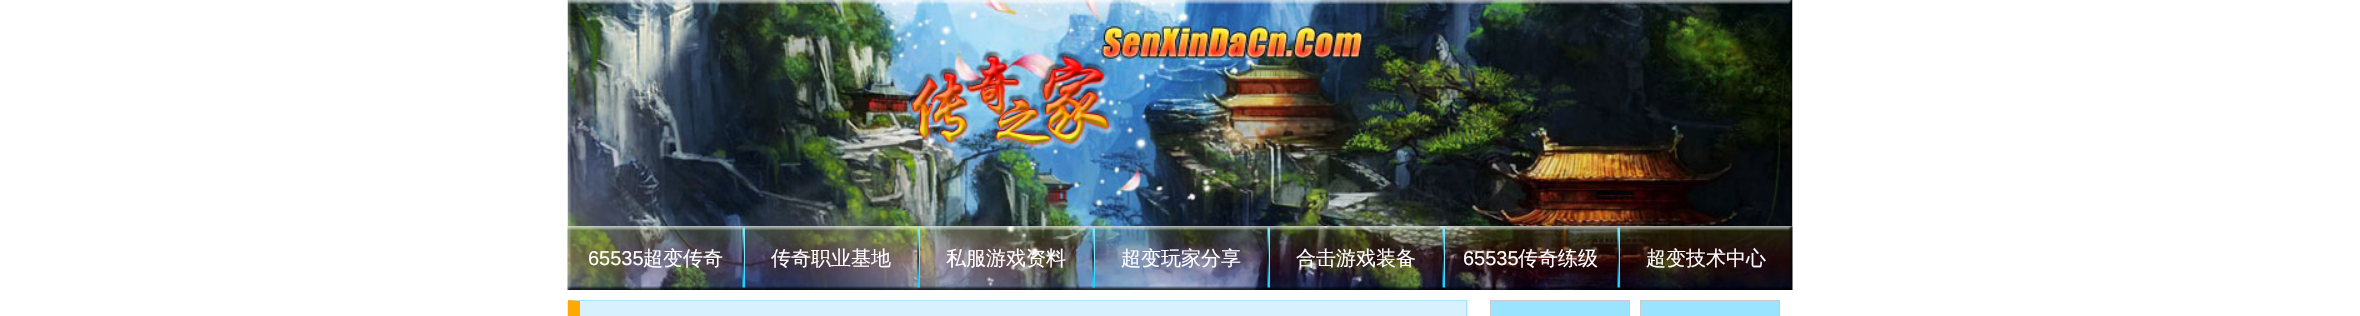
void draw(SkCanvas* canvas) {
	SkPaint paint;
	paint.setAntiAlias(true);
	auto svgPath = [&](const char* data, bool evenOdd = false) {
		SkPath result = *SkParsePath::FromSVGString(data);
		if (evenOdd) result.setFillType(SkPathFillType::kEvenOdd);
		return result;
	};
	canvas->clear(0xffffffff);
	canvas->drawImageRect(SkImages::DeferredFromEncodedData(SkData::MakeFromFileName("img2.png")), SkRect::MakeXYWH(567, 226, 1226, 64), SkSamplingOptions());
	canvas->drawImageRect(SkImages::DeferredFromEncodedData(SkData::MakeFromFileName("img1.png")), SkRect::MakeXYWH(567, 0, 1226, 227), SkSamplingOptions());
	SkFont f1(fontMgr->matchFamilyStyle("Liberation Sans", SkFontStyle::Normal()), 20);
	f1.setSubpixel(true);
	paint.setColor(0xffffffff);
	canvas->drawString("65535", 588, 265, f1, paint);
	SkFont f2(fontMgr->matchFamilyStyle("WenQuanYi Zen Hei", SkFontStyle(500, SkFontStyle::kNormal_Width, SkFontStyle::kUpright_Slant)), 20);
	f2.setSubpixel(true);
	canvas->drawString("超变传奇", 643, 265, f2, paint);
	canvas->drawImageRect(SkImages::DeferredFromEncodedData(SkData::MakeFromFileName("img3.png")), SkRect::MakeXYWH(742, 227, 3, 61), SkSamplingOptions());
	canvas->drawString("传奇职业基地", 771, 265, f2, paint);
	canvas->drawImageRect(SkImages::DeferredFromEncodedData(SkData::MakeFromFileName("img4.png")), SkRect::MakeXYWH(917, 227, 3, 61), SkSamplingOptions());
	canvas->drawString("私服游戏资料", 946, 265, f2, paint);
	canvas->drawImageRect(SkImages::DeferredFromEncodedData(SkData::MakeFromFileName("img5.png")), SkRect::MakeXYWH(1092, 227, 3, 61), SkSamplingOptions());
	canvas->drawString("超变玩家分享", 1121, 265, f2, paint);
	canvas->drawImageRect(SkImages::DeferredFromEncodedData(SkData::MakeFromFileName("img6.png")), SkRect::MakeXYWH(1267, 227, 3, 61), SkSamplingOptions());
	canvas->drawString("合击游戏装备", 1296, 265, f2, paint);
	canvas->drawImageRect(SkImages::DeferredFromEncodedData(SkData::MakeFromFileName("img7.png")), SkRect::MakeXYWH(1442, 227, 3, 61), SkSamplingOptions());
	canvas->drawString("65535", 1463, 265, f1, paint);
	canvas->drawString("传奇练级", 1518, 265, f2, paint);
	canvas->drawImageRect(SkImages::DeferredFromEncodedData(SkData::MakeFromFileName("img8.png")), SkRect::MakeXYWH(1617, 227, 3, 61), SkSamplingOptions());
	canvas->drawString("超变技术中心", 1646, 265, f2, paint);
	paint.setColor(0xffd8f1fe);
	canvas->drawRect(SkRect::MakeXYWH(567, 301, 901, 15), paint);
	paint.setColor(0xffa9e5f8);
	canvas->drawPath(svgPath("M568 300H1468L1466 301H580Z"), paint);
	canvas->drawRect(SkRect::MakeXYWH(1466, 300, 1, 16), paint);
	paint.setColor(0xffffa800);
	canvas->drawPath(svgPath("M568 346V300L580 301V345Z"), paint);
	paint.setStroke(true);
	paint.setStrokeWidth(1);
	paint.setColor(0xffcccccc);
	canvas->drawRect(SkRect::MakeXYWH(1490.5, 300.5, 139, 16), paint);
	paint.setStroke(false);
	paint.setColor(0xff9be4ff);
	canvas->drawRect(SkRect::MakeXYWH(1491, 301, 138, 15), paint);
	paint.setStroke(true);
	paint.setColor(0xffcccccc);
	canvas->drawRect(SkRect::MakeXYWH(1640.5, 300.5, 139, 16), paint);
	paint.setStroke(false);
	paint.setColor(0xff9be4ff);
	canvas->drawRect(SkRect::MakeXYWH(1641, 301, 138, 15), paint);
}
